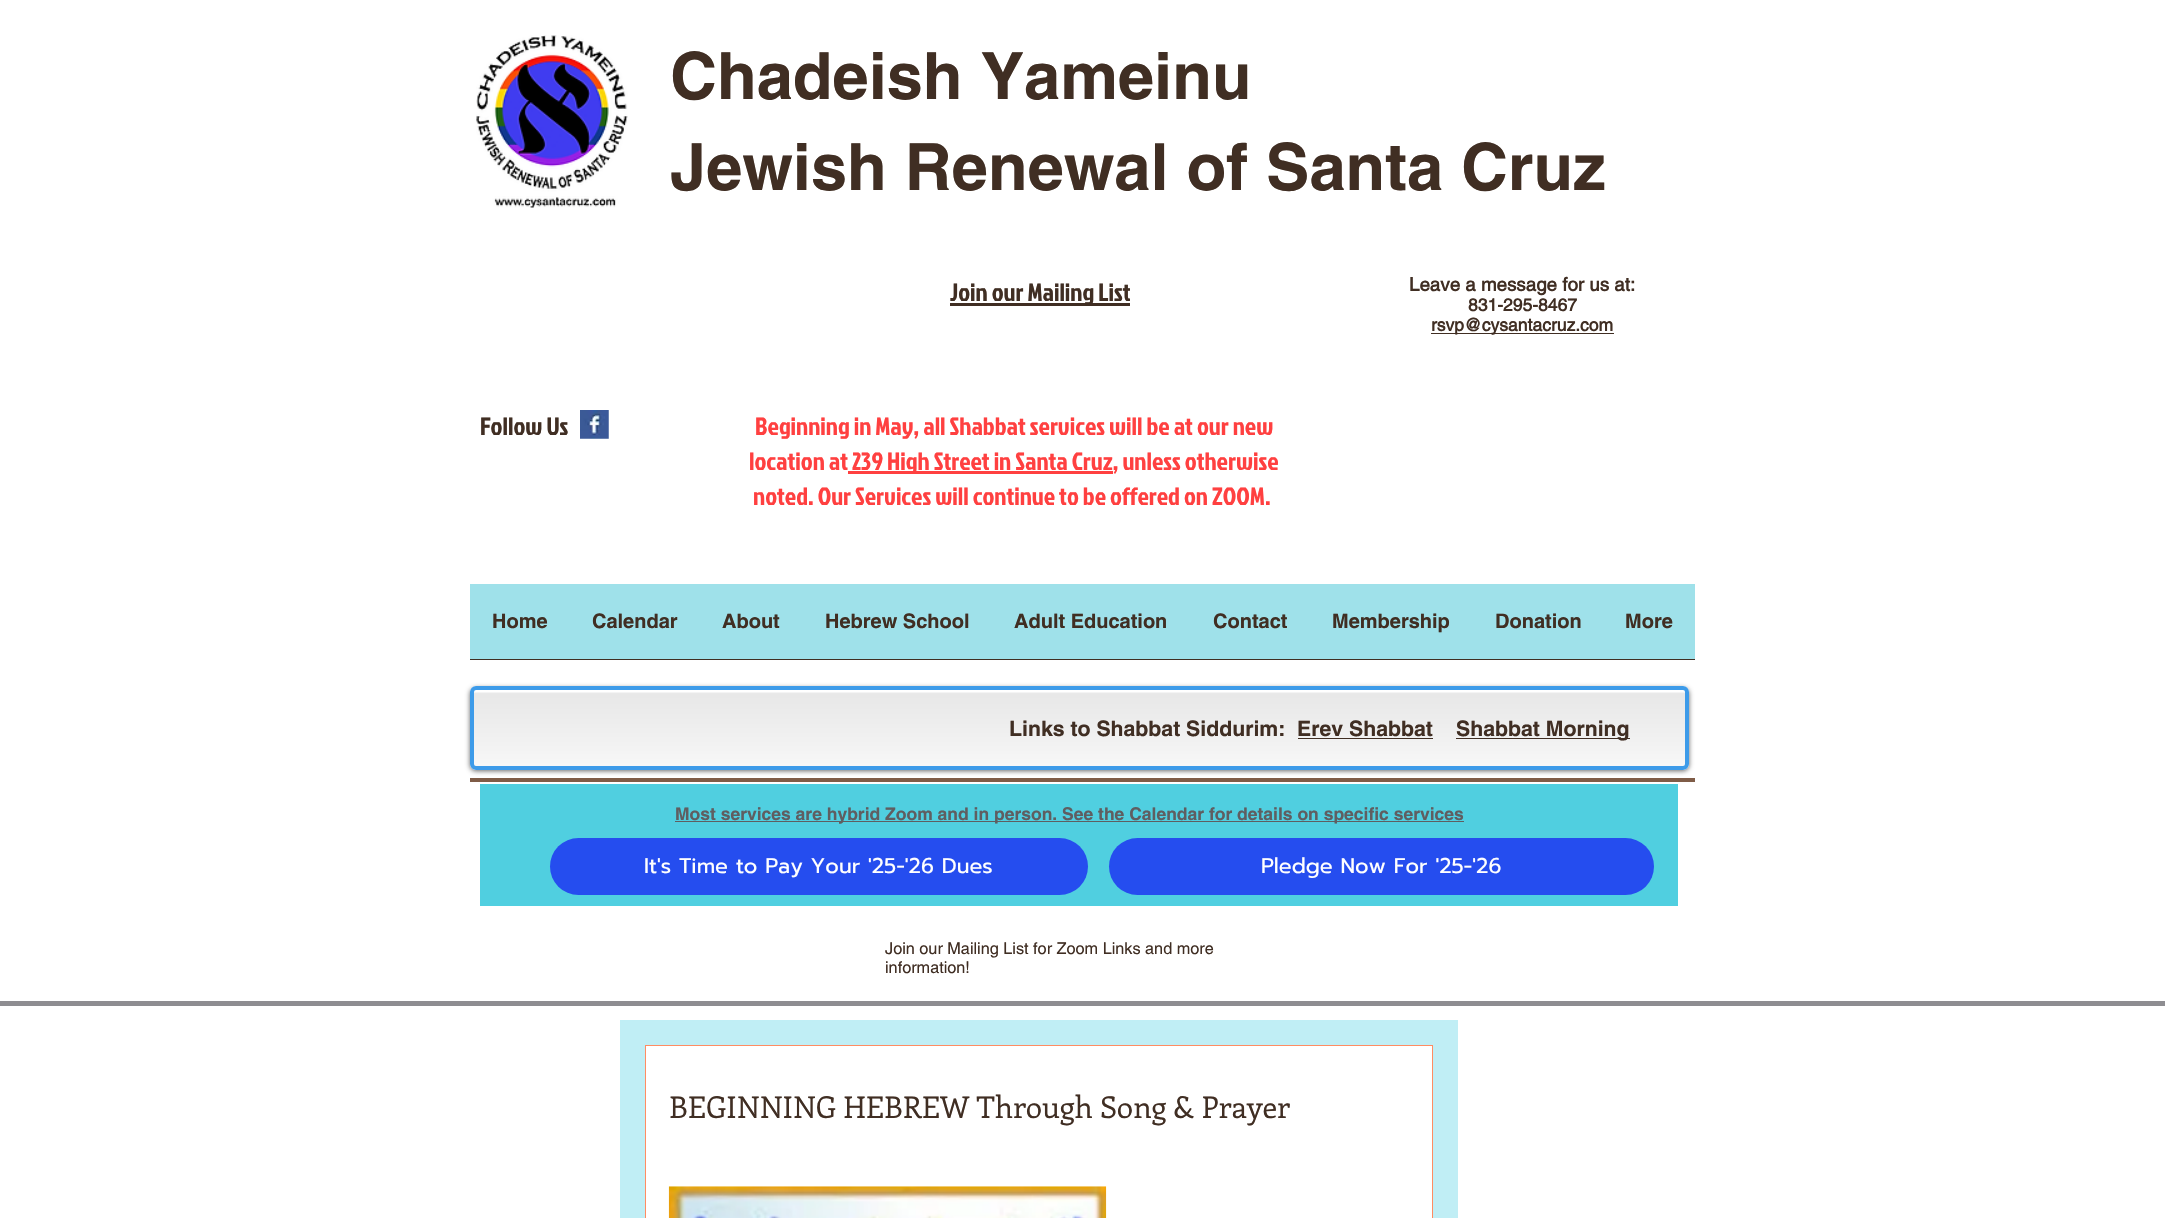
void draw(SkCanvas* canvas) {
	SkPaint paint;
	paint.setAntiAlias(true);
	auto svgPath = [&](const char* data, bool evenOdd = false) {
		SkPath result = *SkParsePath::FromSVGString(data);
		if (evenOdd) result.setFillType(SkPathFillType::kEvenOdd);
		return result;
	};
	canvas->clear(0xffffffff);
	canvas->drawImageRect(SkImages::DeferredFromEncodedData(SkData::MakeFromFileName("img1.png")), SkRect::MakeXYWH(476, 35, 152, 173), SkSamplingOptions());
	SkFont f1(fontMgr->matchFamilyStyle("helvetica", SkFontStyle::Bold()), 65);
	f1.setSubpixel(true);
	paint.setColor(0xff402e23);
	canvas->drawString("Chadeish Yameinu", 670, 99, f1, paint);
	canvas->drawString("Jewish Renewal of Santa Cruz", 670, 190, f1, paint);
	canvas->drawRect(SkRect::MakeXYWH(950, 303, 180, 3), paint);
	SkFont f2(fontMgr->matchFamilyStyle("Jockey One", SkFontStyle::Normal()), 25);
	f2.setSubpixel(true);
	canvas->drawString("Join our Mailing List", 950, 301, f2, paint);
	SkFont f3(fontMgr->matchFamilyStyle("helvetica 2", SkFontStyle::Bold()), 18.75);
	f3.setSubpixel(true);
	canvas->drawString("Leave a message for us at:", 1409, 291, f3, paint);
	SkFont f4(fontMgr->matchFamilyStyle("helvetica 2", SkFontStyle::Bold()), 17.5);
	f4.setSubpixel(true);
	canvas->drawString("831-295-8467", 1468, 311, f4, paint);
	canvas->drawRect(SkRect::MakeXYWH(1431, 333, 183, 1), paint);
	canvas->drawString("rsvp@cysantacruz.com", 1431, 331, f4, paint);
	canvas->drawString("Follow Us", 480, 435, f2, paint);
	canvas->drawImageRect(SkImages::DeferredFromEncodedData(SkData::MakeFromFileName("img2.png")), SkRect::MakeXYWH(580, 410, 29, 29), SkSamplingOptions());
	paint.setColor(0xffff4040);
	canvas->drawString("Beginning in May, all Shabbat services will be at our new", 755, 435, f2, paint);
	canvas->drawString("location at", 749, 470, f2, paint);
	canvas->drawRect(SkRect::MakeXYWH(848, 471, 265, 3), paint);
	canvas->drawString("239 High Street in Santa Cruz, unless otherwise", 852, 470, f2, paint);
	canvas->drawString("noted. Our Services will continue to be offered on ZOOM.", 753, 505, f2, paint);
	paint.setColor(0xff9fe1ea);
	canvas->drawRect(SkRect::MakeXYWH(470, 584, 1225, 75), paint);
	paint.setColor(0xff402e23);
	canvas->drawRect(SkRect::MakeXYWH(470, 659, 1225, 1), paint);
	SkFont f5(fontMgr->matchFamilyStyle("helvetica", SkFontStyle::Bold()), 20);
	f5.setSubpixel(true);
	canvas->drawString("Home", 492, 628, f5, paint);
	canvas->drawString("Calendar", 592, 628, f5, paint);
	canvas->drawString("About", 722, 628, f5, paint);
	canvas->drawString("Hebrew School", 825, 628, f5, paint);
	canvas->drawString("Adult Education", 1014, 628, f5, paint);
	canvas->drawString("Contact", 1213, 628, f5, paint);
	canvas->drawString("Membership", 1332, 628, f5, paint);
	canvas->drawString("Donation", 1495, 628, f5, paint);
	canvas->drawString("More", 1625, 628, f5, paint);
	canvas->save();
	canvas->clipPath(svgPath("M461 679H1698V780H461ZM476 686H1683C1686.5 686 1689 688.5 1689 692V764C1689 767.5 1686.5 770 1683 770H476C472.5 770 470 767.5 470 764V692C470 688.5 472.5 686 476 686Z", true), true);
	paint.setColor(0x99000000);
	paint.setMaskFilter(SkMaskFilter::MakeBlur(kNormal_SkBlurStyle, 2.5));
	canvas->drawRoundRect(SkRect::MakeXYWH(470, 688, 1219, 83), 6, 6, paint);
	paint.setMaskFilter(nullptr);
	canvas->restore();
	canvas->drawImageRect(SkImages::DeferredFromEncodedData(SkData::MakeFromFileName("img3.png")), SkRect::MakeXYWH(470, 692, 1215, 77), SkSamplingOptions());
	paint.setStroke(true);
	paint.setStrokeWidth(4);
	paint.setColor(0xff3d9be9);
	canvas->drawRoundRect(SkRect::MakeXYWH(472, 688, 1215, 80), 4, 4, paint);
	SkFont f6(fontMgr->matchFamilyStyle("helvetica", SkFontStyle::Bold()), 21.25);
	f6.setSubpixel(true);
	paint.setStroke(false);
	paint.setColor(0xff402e23);
	canvas->drawString("Links to Shabbat Siddurim:", 1009, 736, f6, paint);
	canvas->drawString("Erev Shabbat", 1297, 736, f6, paint);
	canvas->drawRect(SkRect::MakeXYWH(1298, 738, 135, 1), paint);
	canvas->drawRect(SkRect::MakeXYWH(1456, 738, 174, 1), paint);
	canvas->drawString("Shabbat Morning", 1456, 736, f6, paint);
	paint.setColor(0xff7f5c47);
	canvas->drawRect(SkRect::MakeXYWH(470, 778, 1225, 4), paint);
	paint.setColor(0xff50cfe0);
	canvas->drawRect(SkRect::MakeXYWH(480, 784, 1198, 122), paint);
	paint.setColor(0xff5f5e61);
	canvas->drawRect(SkRect::MakeXYWH(675, 821, 789, 1), paint);
	SkFont f7(fontMgr->matchFamilyStyle("helvetica", SkFontStyle::Bold()), 17.5);
	f7.setSubpixel(true);
	canvas->drawString("Most services are hybrid Zoom and in person. See the Calendar for details on specific services", 675, 820, f7, paint);
	paint.setColor(0xff254def);
	canvas->drawRoundRect(SkRect::MakeXYWH(550, 838, 538, 57), 28.5, 28.5, paint);
	SkFont f8(fontMgr->matchFamilyStyle("Prompt", SkFontStyle::Normal()), 21.25);
	f8.setSubpixel(true);
	paint.setColor(0xffffffff);
	canvas->drawString("It's Time to Pay Your '25-'26 Dues", 644, 873, f8, paint);
	paint.setColor(0xff254def);
	canvas->drawRoundRect(SkRect::MakeXYWH(1109, 838, 545, 57), 28.5, 28.5, paint);
	paint.setColor(0xffffffff);
	canvas->drawString("Pledge Now For '25-'26", 1261, 873, f8, paint);
	SkFont f9(fontMgr->matchFamilyStyle("helvetica", SkFontStyle::Normal()), 16.25);
	f9.setSubpixel(true);
	paint.setColor(0xff402e23);
	canvas->drawString("Join our Mailing List for Zoom Links and more", 885, 954, f9, paint);
	canvas->drawString("information!", 885, 973, f9, paint);
	paint.setColor(0xff8e8d91);
	canvas->drawRect(SkRect::MakeXYWH(0, 1001, 2165, 5), paint);
	paint.setColor(0xffc0eef5);
	canvas->drawRect(SkRect::MakeXYWH(620, 1020, 838, 198), paint);
	paint.setColor(0xffffffff);
	canvas->drawRect(SkRect::MakeXYWH(645.5, 1045.5, 787, 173), paint);
	paint.setStroke(true);
	paint.setStrokeWidth(1);
	paint.setColor(0xffff8c62);
	canvas->drawRect(SkRect::MakeXYWH(645.5, 1045.5, 787, 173), paint);
	SkFont f10(fontMgr->matchFamilyStyle("Enriqueta", SkFontStyle::Normal()), 30);
	f10.setSubpixel(true);
	paint.setStroke(false);
	paint.setColor(0xff402e23);
	canvas->drawString("BEGINNING HEBREW Through Song & Prayer", 669, 1118, f10, paint);
	canvas->drawImageRect(SkImages::DeferredFromEncodedData(SkData::MakeFromFileName("img4.png")), SkRect::MakeXYWH(668, 1186, 439, 32), SkSamplingOptions());
}
